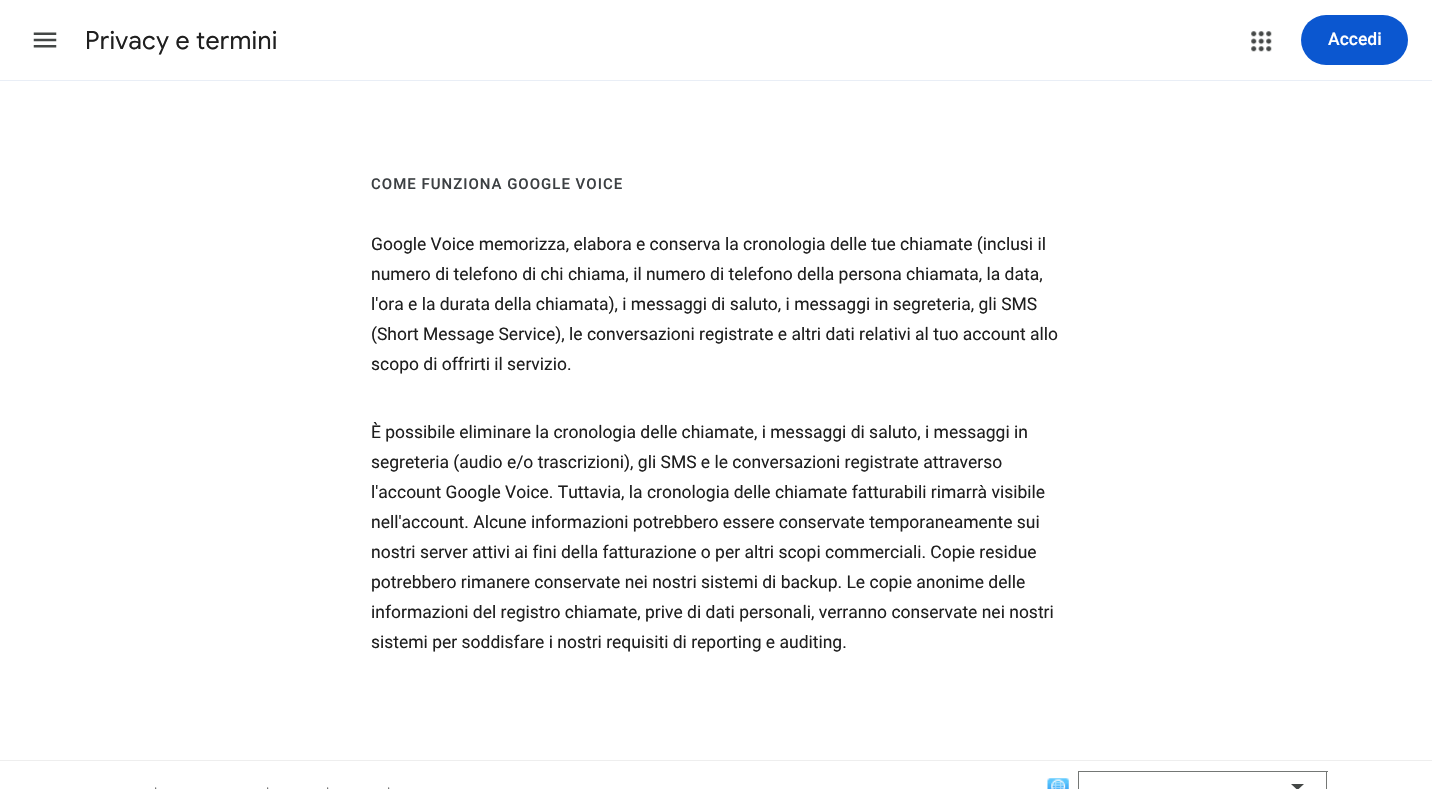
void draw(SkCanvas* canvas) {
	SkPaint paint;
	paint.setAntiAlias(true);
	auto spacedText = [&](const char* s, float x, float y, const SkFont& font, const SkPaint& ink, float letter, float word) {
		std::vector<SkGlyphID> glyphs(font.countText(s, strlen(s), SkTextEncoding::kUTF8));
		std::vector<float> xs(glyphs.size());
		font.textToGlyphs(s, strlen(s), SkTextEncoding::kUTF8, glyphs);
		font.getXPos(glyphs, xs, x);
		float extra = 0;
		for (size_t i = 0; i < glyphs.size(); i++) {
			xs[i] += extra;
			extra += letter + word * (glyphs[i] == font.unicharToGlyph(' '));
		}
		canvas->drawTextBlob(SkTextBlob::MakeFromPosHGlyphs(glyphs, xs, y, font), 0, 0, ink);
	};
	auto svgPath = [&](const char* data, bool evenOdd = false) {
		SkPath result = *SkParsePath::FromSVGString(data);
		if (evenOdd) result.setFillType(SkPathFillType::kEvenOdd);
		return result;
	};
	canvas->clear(0xffffffff);
	canvas->drawImageRect(SkImages::DeferredFromEncodedData(SkData::MakeFromFileName("img1.png")), SkRect::MakeXYWH(33, 32, 24, 16), SkSamplingOptions());
	SkFont f1(fontMgr->matchFamilyStyle("Google Sans", SkFontStyle::Normal()), 25);
	f1.setSubpixel(true);
	paint.setColor(0xff1f1f1f);
	spacedText("Privacy e termini", 85, 49, f1, paint, 0.3, 0);
	canvas->drawImageRect(SkImages::DeferredFromEncodedData(SkData::MakeFromFileName("img2.png")), SkRect::MakeXYWH(1251, 31, 21, 21), SkSamplingOptions());
	paint.setColor(0xff0b57d0);
	canvas->drawRoundRect(SkRect::MakeXYWH(1301, 15, 107, 50), 25, 25, paint);
	SkFont f2(fontMgr->matchFamilyStyle("Roboto", SkFontStyle(500, SkFontStyle::kNormal_Width, SkFontStyle::kUpright_Slant)), 17.5);
	f2.setSubpixel(true);
	paint.setColor(0xffffffff);
	canvas->drawString("Accedi", 1328, 45, f2, paint);
	paint.setColor(0xffe9eef6);
	canvas->drawRect(SkRect::MakeXYWH(0, 80, 1432, 1), paint);
	SkFont f3(fontMgr->matchFamilyStyle("Roboto", SkFontStyle(500, SkFontStyle::kNormal_Width, SkFontStyle::kUpright_Slant)), 15);
	f3.setSubpixel(true);
	paint.setColor(0xff3c4043);
	spacedText("COME FUNZIONA GOOGLE VOICE", 371, 189, f3, paint, 1, 0);
	SkFont f4(fontMgr->matchFamilyStyle("Roboto", SkFontStyle::Normal()), 17.5);
	f4.setSubpixel(true);
	paint.setColor(0xff1f1f1f);
	canvas->drawString("Google Voice memorizza, elabora e conserva la cronologia delle tue chiamate (inclusi il", 371, 250, f4, paint);
	canvas->drawString("numero di telefono di chi chiama, il numero di telefono della persona chiamata, la data,", 371, 280, f4, paint);
	canvas->drawString("l'ora e la durata della chiamata), i messaggi di saluto, i messaggi in segreteria, gli SMS", 371, 310, f4, paint);
	canvas->drawString("(Short Message Service), le conversazioni registrate e altri dati relativi al tuo account allo", 371, 340, f4, paint);
	canvas->drawString("scopo di offrirti il servizio.", 371, 370, f4, paint);
	canvas->drawString("È possibile eliminare la cronologia delle chiamate, i messaggi di saluto, i messaggi in", 371, 438, f4, paint);
	canvas->drawString("segreteria (audio e/o trascrizioni), gli SMS e le conversazioni registrate attraverso", 371, 468, f4, paint);
	canvas->drawString("l'account Google Voice. Tuttavia, la cronologia delle chiamate fatturabili rimarrà visibile", 371, 498, f4, paint);
	canvas->drawString("nell'account. Alcune informazioni potrebbero essere conservate temporaneamente sui", 371, 528, f4, paint);
	canvas->drawString("nostri server attivi ai fini della fatturazione o per altri scopi commerciali. Copie residue", 371, 558, f4, paint);
	canvas->drawString("potrebbero rimanere conservate nei nostri sistemi di backup. Le copie anonime delle", 371, 588, f4, paint);
	canvas->drawString("informazioni del registro chiamate, prive di dati personali, verranno conservate nei nostri", 371, 618, f4, paint);
	canvas->drawString("sistemi per soddisfare i nostri requisiti di reporting e auditing.", 371, 648, f4, paint);
	paint.setColor(0xffeeeeee);
	canvas->drawRect(SkRect::MakeXYWH(0, 760, 1432, 1), paint);
	SkFont f5(fontMgr->matchFamilyStyle("Roboto", SkFontStyle(300, SkFontStyle::kNormal_Width, SkFontStyle::kUpright_Slant)), 14);
	f5.setSubpixel(true);
	paint.setColor(0xff1f1f1f);
	canvas->drawString("·", 154, 793, f5, paint);
	canvas->drawString("·", 266, 793, f5, paint);
	canvas->drawString("·", 326, 793, f5, paint);
	canvas->drawString("·", 387, 793, f5, paint);
	canvas->drawImageRect(SkImages::DeferredFromEncodedData(SkData::MakeFromFileName("img3.png")), SkRect::MakeXYWH(1047, 778, 22, 11), SkSamplingOptions());
	paint.setColor(0xff747775);
	canvas->drawRect(SkRect::MakeXYWH(1078, 771, 250, 1), paint);
	canvas->drawRect(SkRect::MakeXYWH(1078, 771, 1, 18), paint);
	canvas->drawRect(SkRect::MakeXYWH(1326, 771, 1, 18), paint);
	paint.setColor(0xff444746);
	canvas->drawPath(svgPath("M1291 784L1297.5 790L1304 784Z", true), paint);
}
